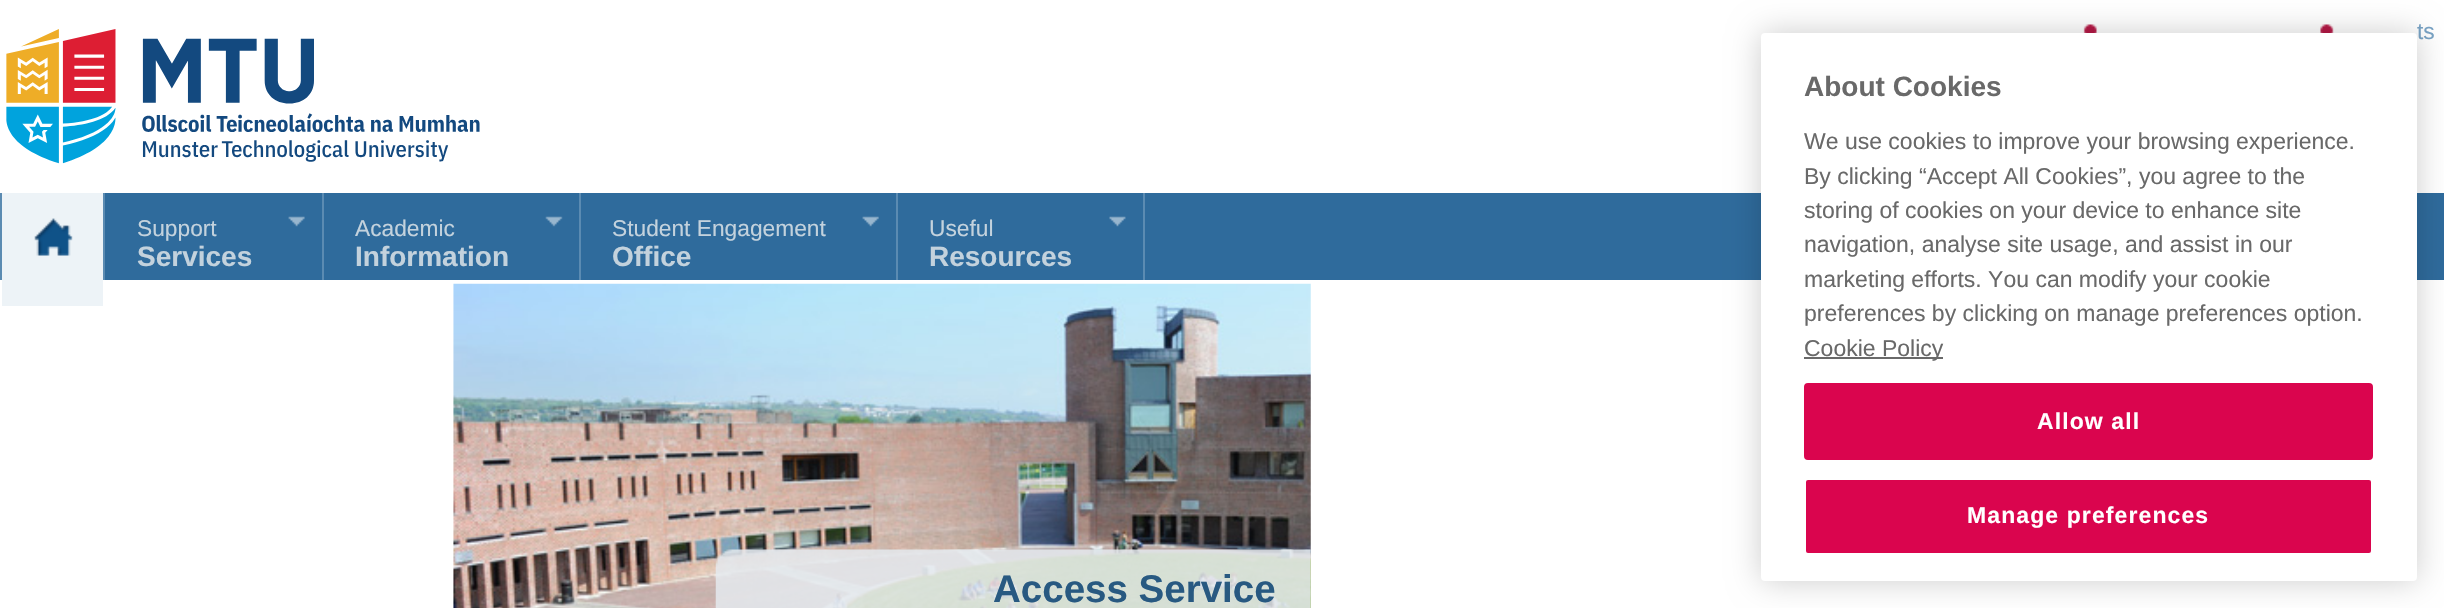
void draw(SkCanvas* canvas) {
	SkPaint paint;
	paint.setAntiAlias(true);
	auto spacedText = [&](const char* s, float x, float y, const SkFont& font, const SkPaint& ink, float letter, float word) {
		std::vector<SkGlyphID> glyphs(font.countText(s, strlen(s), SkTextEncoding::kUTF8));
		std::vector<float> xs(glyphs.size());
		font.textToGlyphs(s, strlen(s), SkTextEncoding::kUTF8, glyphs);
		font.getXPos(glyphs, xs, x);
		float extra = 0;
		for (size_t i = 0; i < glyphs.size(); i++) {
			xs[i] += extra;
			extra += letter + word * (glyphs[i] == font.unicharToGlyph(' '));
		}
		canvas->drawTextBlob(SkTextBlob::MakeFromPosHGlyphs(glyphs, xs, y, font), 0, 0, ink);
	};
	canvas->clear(0xffffffff);
	canvas->drawImageRect(SkImages::DeferredFromEncodedData(SkData::MakeFromFileName("img1.png")), SkRect::MakeXYWH(6, 29, 474, 135), SkSamplingOptions());
	canvas->drawImageRect(SkImages::DeferredFromEncodedData(SkData::MakeFromFileName("img2.png")), SkRect::MakeXYWH(2083, 24, 14, 9), SkSamplingOptions());
	canvas->drawImageRect(SkImages::DeferredFromEncodedData(SkData::MakeFromFileName("img3.png")), SkRect::MakeXYWH(2320, 24, 14, 9), SkSamplingOptions());
	SkFont f1(fontMgr->matchFamilyStyle("Liberation Sans", SkFontStyle::Normal()), 22.75);
	f1.setSubpixel(true);
	paint.setColor(0xff79a3c5);
	canvas->drawString("ts", 2417, 39, f1, paint);
	paint.setColor(0xff2f6b9c);
	canvas->drawRect(SkRect::MakeXYWH(105, 193, 2339, 87), paint);
	paint.setColor(0xff5b8bb2);
	canvas->drawRect(SkRect::MakeXYWH(103, 193, 2, 87), paint);
	canvas->drawRect(SkRect::MakeXYWH(0, 193, 2, 87), paint);
	paint.setColor(0xffedf3f7);
	canvas->drawRect(SkRect::MakeXYWH(2, 193, 101, 113), paint);
	canvas->drawImageRect(SkImages::DeferredFromEncodedData(SkData::MakeFromFileName("img4.png")), SkRect::MakeXYWH(34, 218, 39, 38), SkSamplingOptions());
	paint.setColor(0xff5b8bb2);
	canvas->drawRect(SkRect::MakeXYWH(322, 193, 2, 87), paint);
	canvas->drawImageRect(SkImages::DeferredFromEncodedData(SkData::MakeFromFileName("img5.png")), SkRect::MakeXYWH(288, 216, 17, 11), SkSamplingOptions());
	paint.setColor(0xffc3d2dd);
	canvas->drawString("Support", 137, 236, f1, paint);
	SkFont f2(fontMgr->matchFamilyStyle("Liberation Sans", SkFontStyle::Bold()), 28);
	f2.setSubpixel(true);
	canvas->drawString("Services", 137, 266, f2, paint);
	paint.setColor(0xff5b8bb2);
	canvas->drawRect(SkRect::MakeXYWH(579, 193, 2, 87), paint);
	canvas->drawImageRect(SkImages::DeferredFromEncodedData(SkData::MakeFromFileName("img6.png")), SkRect::MakeXYWH(545, 216, 18, 11), SkSamplingOptions());
	paint.setColor(0xffc3d2dd);
	canvas->drawString("Academic", 355, 236, f1, paint);
	canvas->drawString("Information", 355, 266, f2, paint);
	paint.setColor(0xff5b8bb2);
	canvas->drawRect(SkRect::MakeXYWH(896, 193, 2, 87), paint);
	canvas->drawImageRect(SkImages::DeferredFromEncodedData(SkData::MakeFromFileName("img7.png")), SkRect::MakeXYWH(862, 216, 17, 11), SkSamplingOptions());
	paint.setColor(0xffc3d2dd);
	canvas->drawString("Student Engagement", 612, 236, f1, paint);
	canvas->drawString("Office", 612, 266, f2, paint);
	paint.setColor(0xff5b8bb2);
	canvas->drawRect(SkRect::MakeXYWH(1143, 193, 2, 87), paint);
	canvas->drawImageRect(SkImages::DeferredFromEncodedData(SkData::MakeFromFileName("img8.png")), SkRect::MakeXYWH(1109, 216, 17, 11), SkSamplingOptions());
	paint.setColor(0xffc3d2dd);
	canvas->drawString("Useful", 929, 236, f1, paint);
	canvas->drawString("Resources", 929, 266, f2, paint);
	canvas->drawImageRect(SkImages::DeferredFromEncodedData(SkData::MakeFromFileName("img9.png")), SkRect::MakeXYWH(453, 283, 858, 325), SkSamplingOptions());
	canvas->drawImageRect(SkImages::DeferredFromEncodedData(SkData::MakeFromFileName("img10.png")), SkRect::MakeXYWH(715, 549, 596, 59), SkSamplingOptions());
	SkFont f3(fontMgr->matchFamilyStyle("Liberation Sans", SkFontStyle::Bold()), 38.5);
	f3.setSubpixel(true);
	paint.setColor(0xff285981);
	canvas->drawString("Access Service", 993, 602, f3, paint);
	paint.setColor(0x33000000);
	paint.setMaskFilter(SkMaskFilter::MakeBlur(kNormal_SkBlurStyle, 16));
	canvas->drawRoundRect(SkRect::MakeXYWH(1761, 33, 656, 548), 4, 4, paint);
	paint.setMaskFilter(nullptr);
	paint.setColor(0xffffffff);
	canvas->drawRoundRect(SkRect::MakeXYWH(1761, 33, 656, 548), 4, 4, paint);
	paint.setColor(0xff696969);
	canvas->drawString("About Cookies", 1804, 96, f2, paint);
	SkFont f4(fontMgr->matchFamilyStyle("Liberation Sans", SkFontStyle::Normal()), 23);
	f4.setSubpixel(true);
	canvas->drawString("We use cookies to improve your browsing experience.", 1804, 149, f4, paint);
	canvas->drawString("By clicking “Accept All Cookies”, you agree to the", 1804, 184, f4, paint);
	canvas->drawString("storing of cookies on your device to enhance site", 1804, 218, f4, paint);
	canvas->drawString("navigation, analyse site usage, and assist in our", 1804, 252, f4, paint);
	canvas->drawString("marketing efforts. You can modify your cookie", 1804, 287, f4, paint);
	canvas->drawString("preferences by clicking on manage preferences option.", 1804, 321, f4, paint);
	canvas->drawRect(SkRect::MakeXYWH(1804, 357, 139, 2), paint);
	canvas->drawString("Cookie Policy", 1804, 356, f4, paint);
	paint.setColor(0xffda054e);
	canvas->drawRoundRect(SkRect::MakeXYWH(1805, 384, 567, 75), 3, 3, paint);
	paint.setStroke(true);
	paint.setStrokeWidth(2);
	canvas->drawRoundRect(SkRect::MakeXYWH(1805, 384, 567, 75), 3, 3, paint);
	SkFont f5(fontMgr->matchFamilyStyle("Liberation Sans", SkFontStyle::Bold()), 23);
	f5.setSubpixel(true);
	paint.setStroke(false);
	paint.setColor(0xffffffff);
	spacedText("Allow all", 2037, 429, f5, paint, 1.1, 0);
	paint.setColor(0xffda054e);
	canvas->drawRoundRect(SkRect::MakeXYWH(1805, 479, 567, 75), 3, 3, paint);
	paint.setStroke(true);
	paint.setColor(0xffffffff);
	canvas->drawRoundRect(SkRect::MakeXYWH(1805, 479, 567, 75), 3, 3, paint);
	paint.setStroke(false);
	spacedText("Manage preferences", 1967, 523, f5, paint, 1.1, 0);
}
